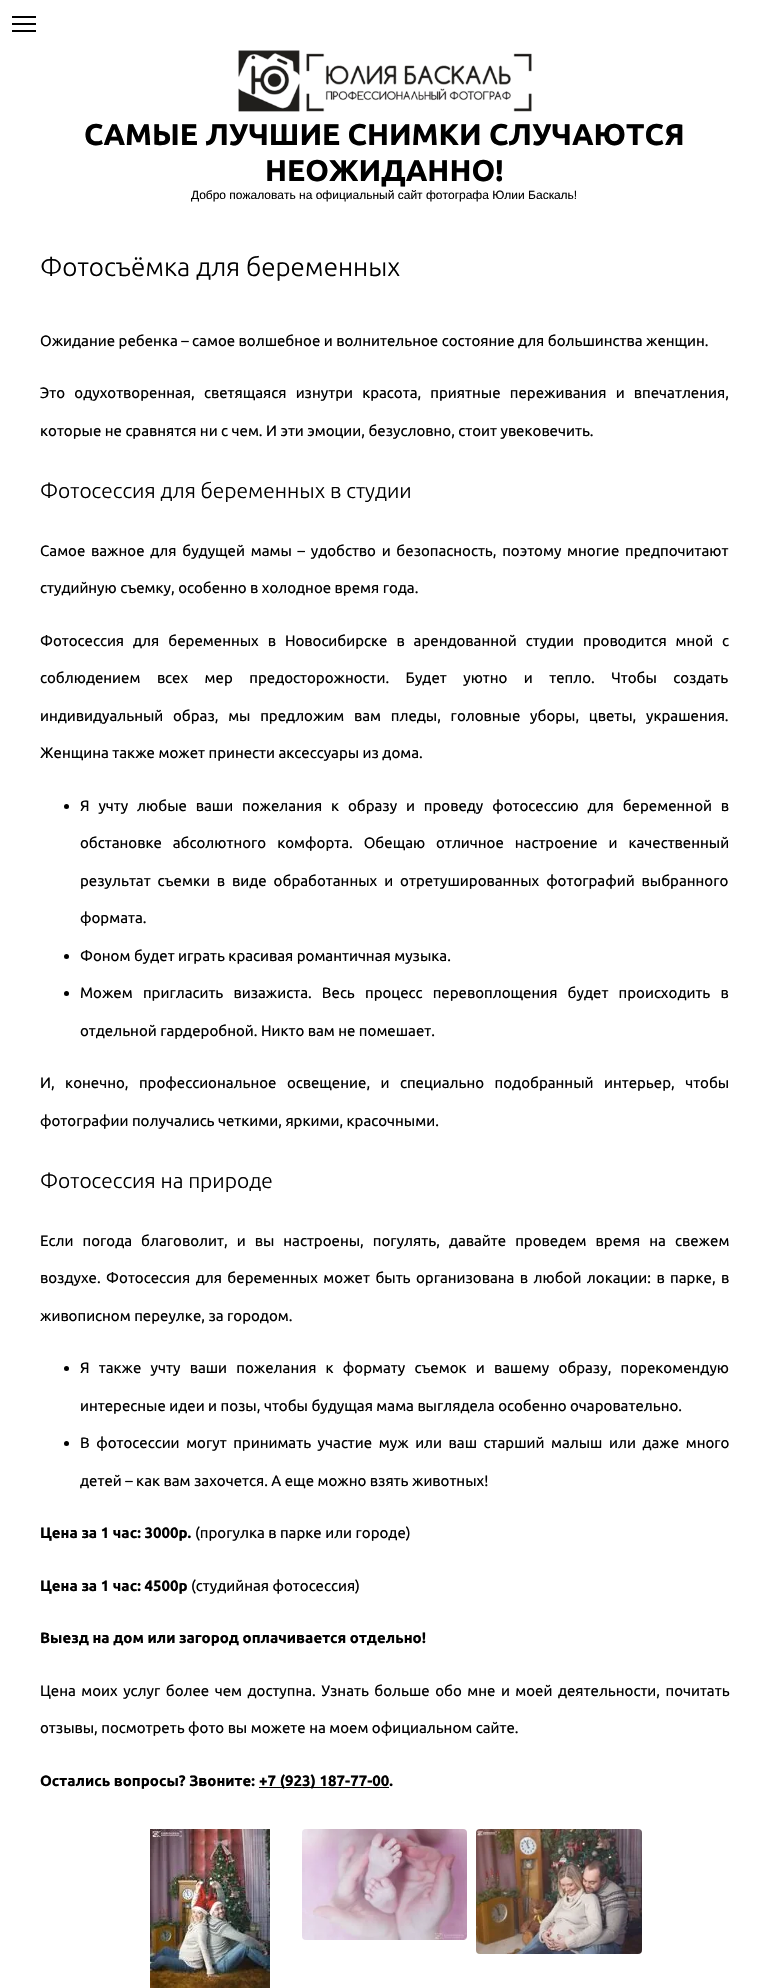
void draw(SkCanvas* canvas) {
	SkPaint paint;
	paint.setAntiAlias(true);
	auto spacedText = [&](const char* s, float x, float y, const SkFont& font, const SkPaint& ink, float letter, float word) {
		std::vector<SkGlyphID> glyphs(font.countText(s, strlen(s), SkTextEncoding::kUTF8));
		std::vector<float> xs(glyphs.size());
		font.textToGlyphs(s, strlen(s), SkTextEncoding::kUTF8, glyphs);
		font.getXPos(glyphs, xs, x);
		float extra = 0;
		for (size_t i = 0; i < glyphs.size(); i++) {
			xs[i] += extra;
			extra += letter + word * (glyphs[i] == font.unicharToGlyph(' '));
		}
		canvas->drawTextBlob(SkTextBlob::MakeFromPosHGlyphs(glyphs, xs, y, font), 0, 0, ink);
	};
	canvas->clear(0xffffffff);
	paint.setColor(0xff000000);
	canvas->drawRect(SkRect::MakeXYWH(12, 16, 24, 2), paint);
	canvas->drawRect(SkRect::MakeXYWH(12, 23, 24, 2), paint);
	canvas->drawRect(SkRect::MakeXYWH(12, 30, 24, 2), paint);
	canvas->drawImageRect(SkImages::DeferredFromEncodedData(SkData::MakeFromFileName("img1.png")), SkRect::MakeXYWH(238, 50, 294, 62), SkSamplingOptions());
	SkFont f1(fontMgr->matchFamilyStyle("Ubuntu", SkFontStyle::Bold()), 30);
	f1.setSubpixel(true);
	canvas->drawString("САМЫЕ ЛУЧШИЕ СНИМКИ СЛУЧАЮТСЯ", 84, 145, f1, paint);
	canvas->drawString("НЕОЖИДАННО!", 265, 181, f1, paint);
	SkFont f2(fontMgr->matchFamilyStyle("Liberation Sans", SkFontStyle::Normal()), 12);
	f2.setSubpixel(true);
	canvas->drawString("Добро пожаловать на официальный сайт фотографа Юлии Баскаль!", 191, 199, f2, paint);
	SkFont f3(fontMgr->matchFamilyStyle("Ubuntu", SkFontStyle(300, SkFontStyle::kNormal_Width, SkFontStyle::kUpright_Slant)), 26);
	f3.setSubpixel(true);
	canvas->drawString("Фотосъёмка для беременных", 40, 276, f3, paint);
	SkFont f4(fontMgr->matchFamilyStyle("Ubuntu", SkFontStyle::Normal()), 15);
	f4.setSubpixel(true);
	canvas->drawString("Ожидание ребенка – самое волшебное и волнительное состояние для большинства женщин.", 40, 346, f4, paint);
	spacedText("Это одухотворенная, светящаяся изнутри красота, приятные переживания и впечатления,", 40, 398, f4, paint, 0, 5.75);
	canvas->drawString("которые не сравнятся ни с чем. И эти эмоции, безусловно, стоит увековечить.", 40, 436, f4, paint);
	SkFont f5(fontMgr->matchFamilyStyle("Ubuntu", SkFontStyle(300, SkFontStyle::kNormal_Width, SkFontStyle::kUpright_Slant)), 21);
	f5.setSubpixel(true);
	canvas->drawString("Фотосессия для беременных в студии", 40, 498, f5, paint);
	spacedText("Самое важное для будущей мамы – удобство и безопасность, поэтому многие предпочитают", 40, 556, f4, paint, 0, 2.25);
	canvas->drawString("студийную съемку, особенно в холодное время года.", 40, 593, f4, paint);
	spacedText("Фотосессия для беременных в Новосибирске в арендованной студии проводится мной с", 40, 646, f4, paint, 0, 5.5);
	spacedText("соблюдением всех мер предосторожности. Будет уютно и тепло. Чтобы создать", 40, 683, f4, paint, 0, 13);
	spacedText("индивидуальный образ, мы предложим вам пледы, головные уборы, цветы, украшения.", 40, 721, f4, paint, 0, 6.25);
	canvas->drawString("Женщина также может принести аксессуары из дома.", 40, 758, f4, paint);
	canvas->drawCircle(66.5, 806.5, 2.5, paint);
	spacedText("Я учту любые ваши пожелания к образу и проведу фотосессию для беременной в", 80, 811, f4, paint, 0, 5.4);
	spacedText("обстановке абсолютного комфорта. Обещаю отличное настроение и качественный", 80, 848, f4, paint, 0, 7.5);
	spacedText("результат съемки в виде обработанных и отретушированных фотографий выбранного", 80, 886, f4, paint, 0, 3.5);
	canvas->drawString("формата.", 80, 923, f4, paint);
	canvas->drawCircle(66.5, 956.5, 2.5, paint);
	canvas->drawString("Фоном будет играть красивая романтичная музыка.", 80, 961, f4, paint);
	canvas->drawCircle(66.5, 993.5, 2.5, paint);
	spacedText("Можем пригласить визажиста. Весь процесс перевоплощения будет происходить в", 80, 998, f4, paint, 0, 6.75);
	canvas->drawString("отдельной гардеробной. Никто вам не помешает.", 80, 1036, f4, paint);
	spacedText("И, конечно, профессиональное освещение, и специально подобранный интерьер, чтобы", 40, 1088, f4, paint, 0, 7);
	canvas->drawString("фотографии получались четкими, яркими, красочными.", 40, 1126, f4, paint);
	canvas->drawString("Фотосессия на природе", 40, 1188, f5, paint);
	spacedText("Если погода благоволит, и вы настроены, погулять, давайте проведем время на свежем", 40, 1246, f4, paint, 0, 5.6);
	spacedText("воздухе. Фотосессия для беременных может быть организована в любой локации: в парке, в", 40, 1283, f4, paint, 0, 2);
	canvas->drawString("живописном переулке, за городом.", 40, 1321, f4, paint);
	canvas->drawCircle(66.5, 1368.5, 2.5, paint);
	spacedText("Я также учту ваши пожелания к формату съемок и вашему образу, порекомендую", 80, 1373, f4, paint, 0, 5.75);
	canvas->drawString("интересные идеи и позы, чтобы будущая мама выглядела особенно очаровательно.", 80, 1411, f4, paint);
	canvas->drawCircle(66.5, 1443.5, 2.5, paint);
	spacedText("В фотосессии могут принимать участие муж или ваш старший малыш или даже много", 80, 1448, f4, paint, 0, 3.1);
	canvas->drawString("детей – как вам захочется. А еще можно взять животных!", 80, 1486, f4, paint);
	SkFont f6(fontMgr->matchFamilyStyle("Ubuntu", SkFontStyle::Bold()), 15);
	f6.setSubpixel(true);
	canvas->drawString("Цена за 1 час: 3000р.", 40, 1538, f6, paint);
	canvas->drawString("(прогулка в парке или городе)", 195, 1538, f4, paint);
	canvas->drawString("Цена за 1 час: 4500р", 40, 1591, f6, paint);
	canvas->drawString("(студийная фотосессия)", 191, 1591, f4, paint);
	canvas->drawString("Выезд на дом или загород оплачивается отдельно!", 40, 1643, f6, paint);
	spacedText("Цена моих услуг более чем доступна. Узнать больше обо мне и моей деятельности, почитать", 40, 1696, f4, paint, 0, 2);
	canvas->drawString("отзывы, посмотреть фото вы можете на моем официальном сайте.", 40, 1733, f4, paint);
	canvas->drawString("Остались вопросы? Звоните:", 40, 1786, f6, paint);
	canvas->drawRect(SkRect::MakeXYWH(259, 1787, 130, 1), paint);
	canvas->drawString("+7 (923) 187-77-00.", 259, 1786, f6, paint);
	canvas->drawImageRect(SkImages::DeferredFromEncodedData(SkData::MakeFromFileName("img2.png")), SkRect::MakeXYWH(150, 1829, 120, 159), SkSamplingOptions());
	canvas->drawImageRect(SkImages::DeferredFromEncodedData(SkData::MakeFromFileName("img3.png")), SkRect::MakeXYWH(302, 1829, 165, 111), SkSamplingOptions());
	canvas->drawImageRect(SkImages::DeferredFromEncodedData(SkData::MakeFromFileName("img4.png")), SkRect::MakeXYWH(476, 1829, 166, 125), SkSamplingOptions());
}
